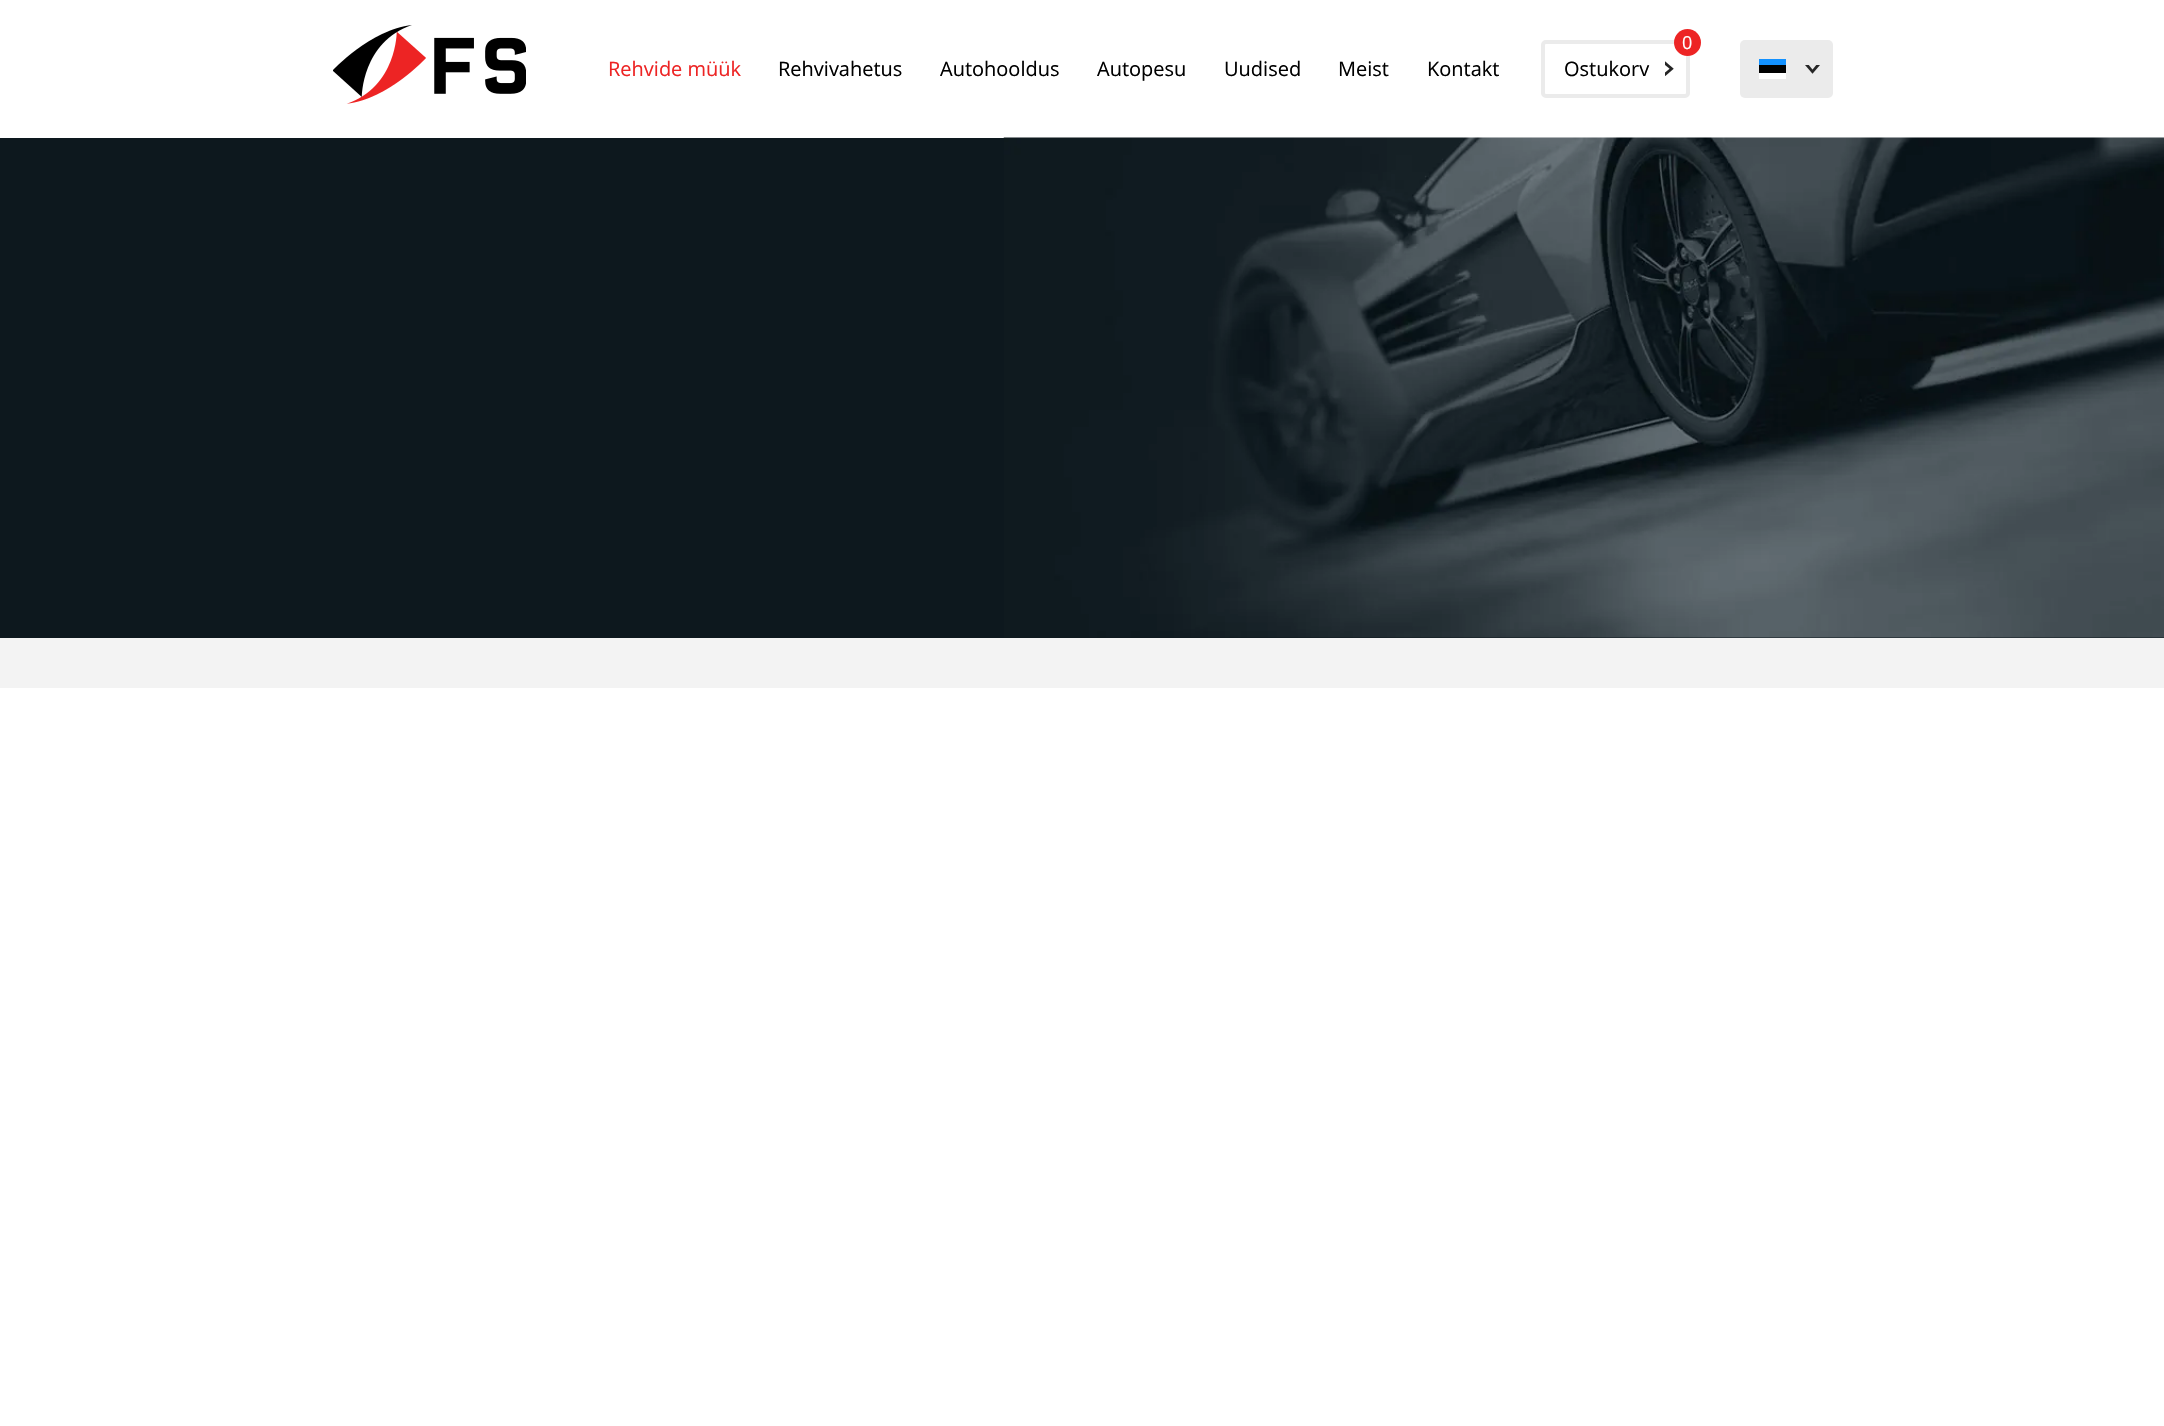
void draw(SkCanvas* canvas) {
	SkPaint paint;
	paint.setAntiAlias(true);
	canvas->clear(0xffffffff);
	canvas->drawImageRect(SkImages::DeferredFromEncodedData(SkData::MakeFromFileName("img1.png")), SkRect::MakeXYWH(333, 25, 193, 79), SkSamplingOptions());
	SkFont f1(fontMgr->matchFamilyStyle("Open Sans", SkFontStyle::Normal()), 20);
	f1.setSubpixel(true);
	paint.setColor(0xffed2424);
	canvas->drawString("Rehvide müük", 608, 76, f1, paint);
	paint.setColor(0xff000000);
	canvas->drawString("Rehvivahetus", 778, 76, f1, paint);
	canvas->drawString("Autohooldus", 940, 76, f1, paint);
	canvas->drawString("Autopesu", 1097, 76, f1, paint);
	canvas->drawString("Uudised", 1224, 76, f1, paint);
	canvas->drawString("Meist", 1338, 76, f1, paint);
	canvas->drawString("Kontakt", 1427, 76, f1, paint);
	canvas->drawImageRect(SkImages::DeferredFromEncodedData(SkData::MakeFromFileName("img2.png")), SkRect::MakeXYWH(1665, 61, 9, 15), SkSamplingOptions());
	paint.setStroke(true);
	paint.setStrokeWidth(4);
	paint.setColor(0xffebebeb);
	canvas->drawRoundRect(SkRect::MakeXYWH(1543, 42, 145, 54), 3, 3, paint);
	paint.setStroke(false);
	paint.setColor(0xffed2424);
	canvas->drawCircle(1687.5, 42.5, 13.5, paint);
	SkFont f2(fontMgr->matchFamilyStyle("Open Sans", SkFontStyle::Normal()), 18);
	f2.setSubpixel(true);
	paint.setColor(0xffffffff);
	canvas->drawString("0", 1682, 49, f2, paint);
	paint.setColor(0xff000000);
	canvas->drawString("Ostukorv", 1564, 76, f1, paint);
	paint.setColor(0xffebebeb);
	canvas->drawRoundRect(SkRect::MakeXYWH(1740, 40, 93, 58), 5, 5, paint);
	canvas->drawImageRect(SkImages::DeferredFromEncodedData(SkData::MakeFromFileName("img3.png")), SkRect::MakeXYWH(1805, 65, 15, 9), SkSamplingOptions());
	paint.setColor(0xff1291ff);
	canvas->drawRect(SkRect::MakeXYWH(1759, 59, 27, 6), paint);
	paint.setColor(0xff000000);
	canvas->drawRect(SkRect::MakeXYWH(1759, 65, 27, 8), paint);
	paint.setColor(0xffffffff);
	canvas->drawRect(SkRect::MakeXYWH(1759, 73, 27, 6), paint);
	paint.setColor(0xfff3f3f3);
	canvas->drawRect(SkRect::MakeXYWH(0, 638, 2164, 50), paint);
	paint.setColor(0xff0d181e);
	canvas->drawRect(SkRect::MakeXYWH(0, 138, 2164, 500), paint);
	canvas->drawImageRect(SkImages::DeferredFromEncodedData(SkData::MakeFromFileName("img4.png")), SkRect::MakeXYWH(1003, 137, 1161, 501), SkSamplingOptions());
}
